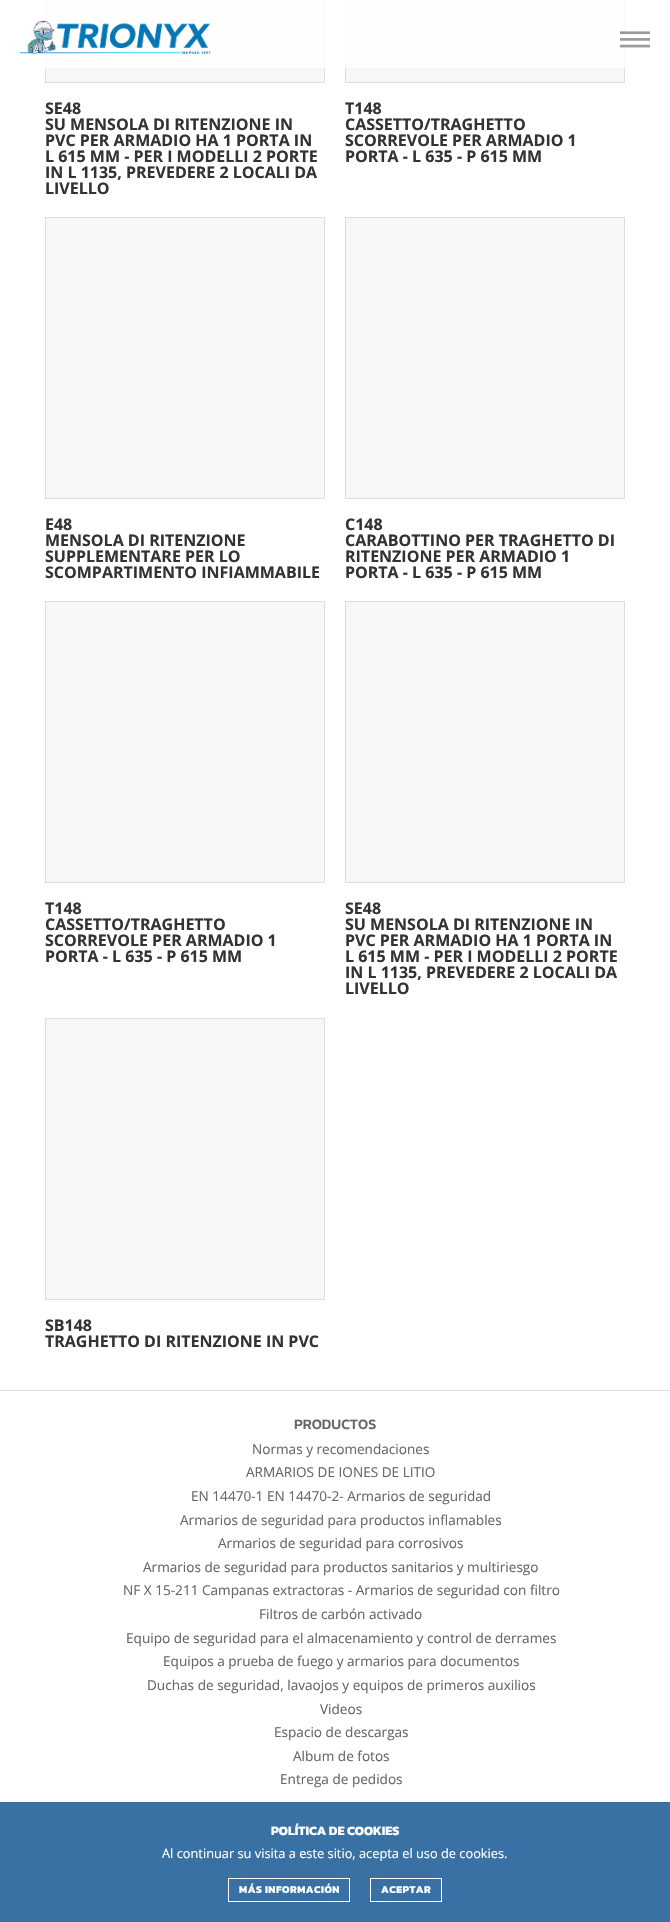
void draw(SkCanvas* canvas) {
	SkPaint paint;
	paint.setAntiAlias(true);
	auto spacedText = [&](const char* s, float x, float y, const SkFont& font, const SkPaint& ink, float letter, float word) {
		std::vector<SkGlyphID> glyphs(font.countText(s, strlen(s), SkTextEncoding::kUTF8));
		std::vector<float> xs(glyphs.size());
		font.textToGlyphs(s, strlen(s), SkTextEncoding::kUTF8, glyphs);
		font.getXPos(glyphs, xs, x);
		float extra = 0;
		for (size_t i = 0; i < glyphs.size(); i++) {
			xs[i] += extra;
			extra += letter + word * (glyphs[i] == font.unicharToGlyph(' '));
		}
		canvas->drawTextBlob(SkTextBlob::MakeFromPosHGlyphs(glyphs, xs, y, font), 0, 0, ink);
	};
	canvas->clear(0xffffffff);
	paint.setColor(0xfff7f7f7);
	canvas->drawRect(SkRect::MakeXYWH(45.5, -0.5, 279, 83), paint);
	paint.setStroke(true);
	paint.setStrokeWidth(1);
	paint.setColor(0xffdedede);
	canvas->drawRect(SkRect::MakeXYWH(45.5, -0.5, 279, 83), paint);
	paint.setStroke(false);
	paint.setColor(0xfff7f7f7);
	canvas->drawRect(SkRect::MakeXYWH(345.5, -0.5, 279, 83), paint);
	paint.setStroke(true);
	paint.setColor(0xffdedede);
	canvas->drawRect(SkRect::MakeXYWH(345.5, -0.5, 279, 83), paint);
	paint.setStroke(false);
	paint.setColor(0xccffffff);
	canvas->drawRect(SkRect::MakeXYWH(45, 0, 580, 68), paint);
	canvas->drawImageRect(SkImages::DeferredFromEncodedData(SkData::MakeFromFileName("img1.png")), SkRect::MakeXYWH(20, 20, 191, 34), SkSamplingOptions());
	canvas->drawImageRect(SkImages::DeferredFromEncodedData(SkData::MakeFromFileName("img2.png")), SkRect::MakeXYWH(620, 31, 30, 17), SkSamplingOptions());
	SkFont f1(fontMgr->matchFamilyStyle("Open Sans", SkFontStyle::Bold()), 16);
	f1.setSubpixel(true);
	paint.setColor(0xff333333);
	canvas->drawString("SE48", 45, 114, f1, paint);
	canvas->drawString("SU MENSOLA DI RITENZIONE IN", 45, 130, f1, paint);
	canvas->drawString("PVC PER ARMADIO HA 1 PORTA IN", 45, 146, f1, paint);
	canvas->drawString("L 615 MM - PER I MODELLI 2 PORTE", 45, 162, f1, paint);
	canvas->drawString("IN L 1135, PREVEDERE 2 LOCALI DA", 45, 178, f1, paint);
	canvas->drawString("LIVELLO", 45, 194, f1, paint);
	canvas->drawString("T148", 345, 114, f1, paint);
	canvas->drawString("CASSETTO/TRAGHETTO", 345, 130, f1, paint);
	canvas->drawString("SCORREVOLE PER ARMADIO 1", 345, 146, f1, paint);
	canvas->drawString("PORTA - L 635 - P 615 MM", 345, 162, f1, paint);
	paint.setColor(0xfff7f7f7);
	canvas->drawRect(SkRect::MakeXYWH(45.5, 217.5, 279, 281), paint);
	paint.setStroke(true);
	paint.setColor(0xffdedede);
	canvas->drawRect(SkRect::MakeXYWH(45.5, 217.5, 279, 281), paint);
	paint.setStroke(false);
	paint.setColor(0xff333333);
	canvas->drawString("E48", 45, 530, f1, paint);
	canvas->drawString("MENSOLA DI RITENZIONE", 45, 546, f1, paint);
	canvas->drawString("SUPPLEMENTARE PER LO", 45, 562, f1, paint);
	canvas->drawString("SCOMPARTIMENTO INFIAMMABILE", 45, 578, f1, paint);
	paint.setColor(0xfff7f7f7);
	canvas->drawRect(SkRect::MakeXYWH(345.5, 217.5, 279, 281), paint);
	paint.setStroke(true);
	paint.setColor(0xffdedede);
	canvas->drawRect(SkRect::MakeXYWH(345.5, 217.5, 279, 281), paint);
	paint.setStroke(false);
	paint.setColor(0xff333333);
	canvas->drawString("C148", 345, 530, f1, paint);
	canvas->drawString("CARABOTTINO PER TRAGHETTO DI", 345, 546, f1, paint);
	canvas->drawString("RITENZIONE PER ARMADIO 1", 345, 562, f1, paint);
	canvas->drawString("PORTA - L 635 - P 615 MM", 345, 578, f1, paint);
	paint.setColor(0xfff7f7f7);
	canvas->drawRect(SkRect::MakeXYWH(45.5, 601.5, 279, 281), paint);
	paint.setStroke(true);
	paint.setColor(0xffdedede);
	canvas->drawRect(SkRect::MakeXYWH(45.5, 601.5, 279, 281), paint);
	paint.setStroke(false);
	paint.setColor(0xff333333);
	canvas->drawString("T148", 45, 914, f1, paint);
	canvas->drawString("CASSETTO/TRAGHETTO", 45, 930, f1, paint);
	canvas->drawString("SCORREVOLE PER ARMADIO 1", 45, 946, f1, paint);
	canvas->drawString("PORTA - L 635 - P 615 MM", 45, 962, f1, paint);
	paint.setColor(0xfff7f7f7);
	canvas->drawRect(SkRect::MakeXYWH(345.5, 601.5, 279, 281), paint);
	paint.setStroke(true);
	paint.setColor(0xffdedede);
	canvas->drawRect(SkRect::MakeXYWH(345.5, 601.5, 279, 281), paint);
	paint.setStroke(false);
	paint.setColor(0xff333333);
	canvas->drawString("SE48", 345, 914, f1, paint);
	canvas->drawString("SU MENSOLA DI RITENZIONE IN", 345, 930, f1, paint);
	canvas->drawString("PVC PER ARMADIO HA 1 PORTA IN", 345, 946, f1, paint);
	canvas->drawString("L 615 MM - PER I MODELLI 2 PORTE", 345, 962, f1, paint);
	canvas->drawString("IN L 1135, PREVEDERE 2 LOCALI DA", 345, 978, f1, paint);
	canvas->drawString("LIVELLO", 345, 994, f1, paint);
	paint.setColor(0xfff7f7f7);
	canvas->drawRect(SkRect::MakeXYWH(45.5, 1018.5, 279, 281), paint);
	paint.setStroke(true);
	paint.setColor(0xffdedede);
	canvas->drawRect(SkRect::MakeXYWH(45.5, 1018.5, 279, 281), paint);
	paint.setStroke(false);
	paint.setColor(0xff333333);
	canvas->drawString("SB148", 45, 1331, f1, paint);
	canvas->drawString("TRAGHETTO DI RITENZIONE IN PVC", 45, 1347, f1, paint);
	paint.setColor(0xffdddddd);
	canvas->drawRect(SkRect::MakeXYWH(0, 1390, 670, 1), paint);
	SkFont f2(fontMgr->matchFamilyStyle("Kanit", SkFontStyle(500, SkFontStyle::kNormal_Width, SkFontStyle::kUpright_Slant)), 14.5);
	f2.setSubpixel(true);
	paint.setColor(0xff666666);
	canvas->drawString("PRODUCTOS", 294, 1429, f2, paint);
	SkFont f3(fontMgr->matchFamilyStyle("Open Sans", SkFontStyle::Normal()), 13.6);
	f3.setSubpixel(true);
	canvas->drawString("Normas y recomendaciones", 252, 1454, f3, paint);
	canvas->drawString("ARMARIOS DE IONES DE LITIO", 246, 1477, f3, paint);
	canvas->drawString("EN 14470-1 EN 14470-2- Armarios de seguridad", 191, 1501, f3, paint);
	canvas->drawString("Armarios de seguridad para productos inflamables", 180, 1525, f3, paint);
	canvas->drawString("Armarios de seguridad para corrosivos", 218, 1548, f3, paint);
	canvas->drawString("Armarios de seguridad para productos sanitarios y multiriesgo", 143, 1572, f3, paint);
	canvas->drawString("NF X 15-211 Campanas extractoras - Armarios de seguridad con filtro", 123, 1595, f3, paint);
	canvas->drawString("Filtros de carbón activado", 259, 1619, f3, paint);
	canvas->drawString("Equipo de seguridad para el almacenamiento y control de derrames", 126, 1643, f3, paint);
	canvas->drawString("Equipos a prueba de fuego y armarios para documentos", 163, 1666, f3, paint);
	canvas->drawString("Duchas de seguridad, lavaojos y equipos de primeros auxilios", 147, 1690, f3, paint);
	canvas->drawString("Videos", 320, 1714, f3, paint);
	canvas->drawString("Espacio de descargas", 274, 1737, f3, paint);
	canvas->drawString("Album de fotos", 293, 1761, f3, paint);
	canvas->drawString("Entrega de pedidos", 280, 1784, f3, paint);
	paint.setColor(0xe624629b);
	canvas->drawRect(SkRect::MakeXYWH(0, 1802, 670, 120), paint);
	SkFont f4(fontMgr->matchFamilyStyle("Kanit", SkFontStyle::Bold()), 12.8);
	f4.setSubpixel(true);
	paint.setColor(0xffffffff);
	canvas->drawString("POLÍTICA DE COOKIES", 271, 1835, f4, paint);
	SkFont f5(fontMgr->matchFamilyStyle("Open Sans", SkFontStyle::Normal()), 12.8);
	f5.setSubpixel(true);
	canvas->drawString("Al continuar su visita a este sitio, acepta el uso de cookies.", 162, 1858, f5, paint);
	paint.setStroke(true);
	canvas->drawRect(SkRect::MakeXYWH(228.5, 1878.5, 121, 23), paint);
	SkFont f6(fontMgr->matchFamilyStyle("Kanit", SkFontStyle::Bold()), 10.5);
	f6.setSubpixel(true);
	paint.setStroke(false);
	spacedText("MÁS INFORMACIÓN", 239, 1893, f6, paint, 0.5, 0);
	paint.setStroke(true);
	canvas->drawRect(SkRect::MakeXYWH(370.5, 1878.5, 71, 23), paint);
	paint.setStroke(false);
	spacedText("ACEPTAR", 381, 1893, f6, paint, 0.5, 0);
}
